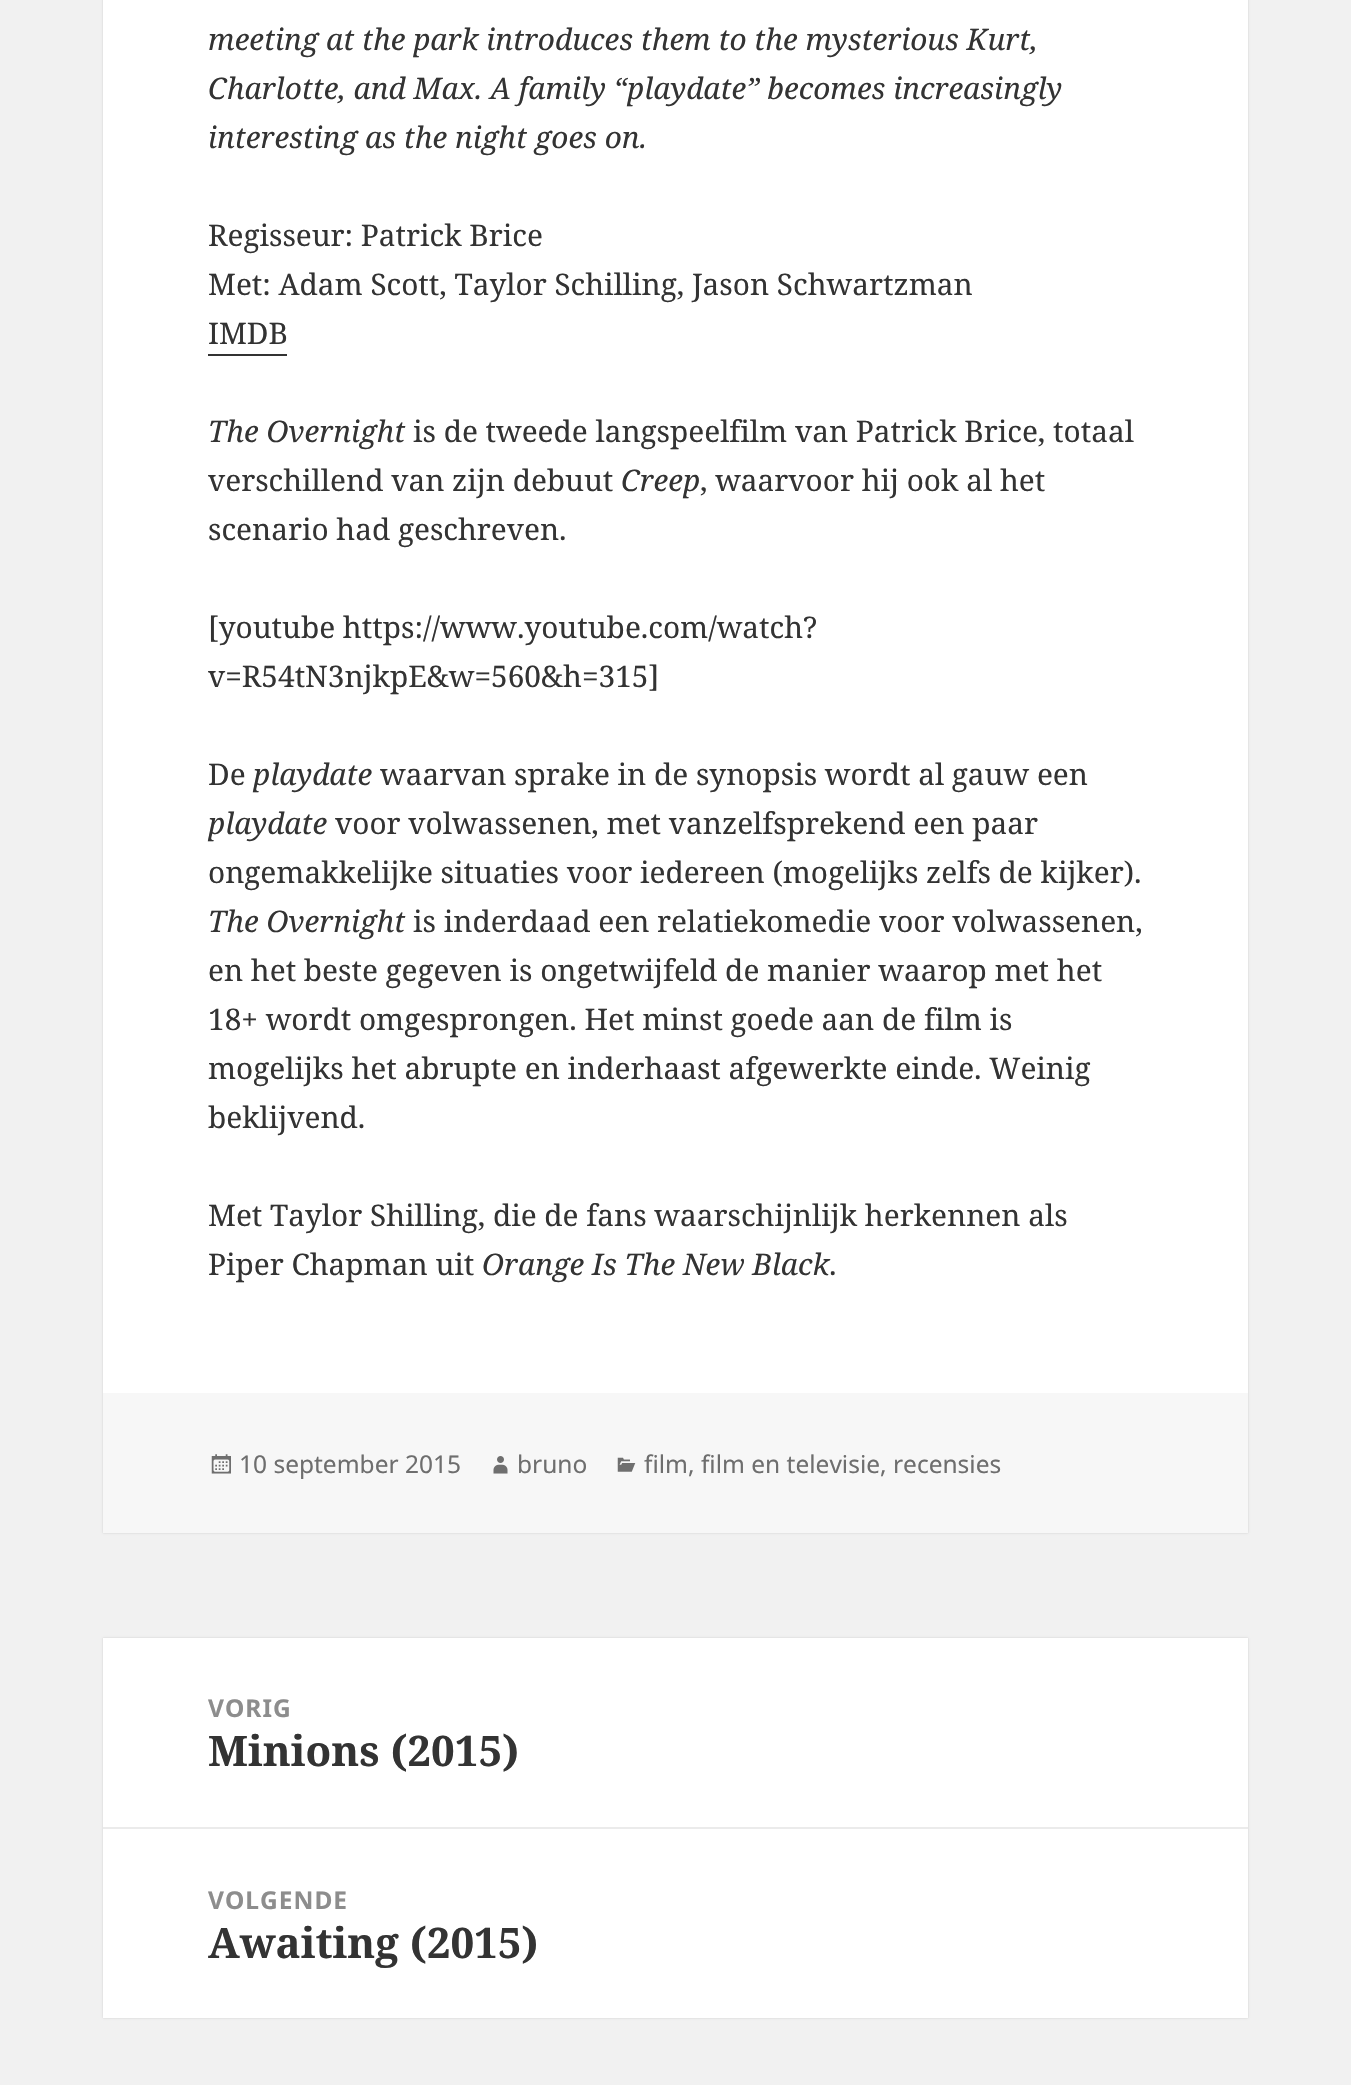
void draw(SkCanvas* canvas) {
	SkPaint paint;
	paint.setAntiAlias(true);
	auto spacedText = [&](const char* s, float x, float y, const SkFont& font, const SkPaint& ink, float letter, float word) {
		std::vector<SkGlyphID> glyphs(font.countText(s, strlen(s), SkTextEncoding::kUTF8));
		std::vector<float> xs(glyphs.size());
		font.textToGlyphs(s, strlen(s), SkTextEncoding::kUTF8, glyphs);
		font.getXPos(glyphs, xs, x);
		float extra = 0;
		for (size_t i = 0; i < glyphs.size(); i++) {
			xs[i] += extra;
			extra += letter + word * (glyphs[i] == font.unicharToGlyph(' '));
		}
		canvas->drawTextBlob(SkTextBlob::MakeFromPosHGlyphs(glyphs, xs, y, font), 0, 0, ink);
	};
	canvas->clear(0xfff1f1f1);
	paint.setColor(0x26000000);
	paint.setMaskFilter(SkMaskFilter::MakeBlur(kNormal_SkBlurStyle, 1));
	canvas->drawRect(SkRect::MakeXYWH(103, -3, 1145, 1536), paint);
	paint.setMaskFilter(nullptr);
	paint.setColor(0xffffffff);
	canvas->drawRect(SkRect::MakeXYWH(103, 0, 1145, 1393), paint);
	SkFont f1(fontMgr->matchFamilyStyle("Noto Serif", SkFontStyle::Italic()), 29.75);
	f1.setSubpixel(true);
	paint.setColor(0xff333333);
	canvas->drawString("meeting at the park introduces them to the mysterious Kurt,", 208, 50, f1, paint);
	canvas->drawString("Charlotte, and Max. A family “playdate” becomes increasingly", 208, 99, f1, paint);
	canvas->drawString("interesting as the night goes on.", 208, 148, f1, paint);
	SkFont f2(fontMgr->matchFamilyStyle("Noto Serif", SkFontStyle::Normal()), 29.75);
	f2.setSubpixel(true);
	canvas->drawString("Regisseur: Patrick Brice", 208, 246, f2, paint);
	canvas->drawString("Met: Adam Scott, Taylor Schilling, Jason Schwartzman", 208, 295, f2, paint);
	canvas->drawString("IMDB", 208, 344, f2, paint);
	canvas->drawRect(SkRect::MakeXYWH(208, 354, 79, 2), paint);
	canvas->drawString("The Overnight", 208, 442, f1, paint);
	canvas->drawString("is de tweede langspeelfilm van Patrick Brice, totaal", 413, 442, f2, paint);
	canvas->drawString("verschillend van zijn debuut", 208, 491, f2, paint);
	canvas->drawString("Creep", 621, 491, f1, paint);
	canvas->drawString(", waarvoor hij ook al het", 700, 491, f2, paint);
	canvas->drawString("scenario had geschreven.", 208, 540, f2, paint);
	canvas->drawString("[youtube https://www.youtube.com/watch?", 208, 638, f2, paint);
	canvas->drawString("v=R54tN3njkpE&w=560&h=315]", 208, 687, f2, paint);
	canvas->drawString("De", 208, 785, f2, paint);
	canvas->drawString("playdate", 253, 785, f1, paint);
	canvas->drawString("waarvan sprake in de synopsis wordt al gauw een", 380, 785, f2, paint);
	canvas->drawString("playdate", 208, 834, f1, paint);
	canvas->drawString("voor volwassenen, met vanzelfsprekend een paar", 335, 834, f2, paint);
	canvas->drawString("ongemakkelijke situaties voor iedereen (mogelijks zelfs de kijker).", 208, 883, f2, paint);
	canvas->drawString("The Overnight", 208, 932, f1, paint);
	canvas->drawString("is inderdaad een relatiekomedie voor volwassenen,", 413, 932, f2, paint);
	canvas->drawString("en het beste gegeven is ongetwijfeld de manier waarop met het", 208, 981, f2, paint);
	canvas->drawString("18+ wordt omgesprongen. Het minst goede aan de film is", 208, 1030, f2, paint);
	canvas->drawString("mogelijks het abrupte en inderhaast afgewerkte einde. Weinig", 208, 1079, f2, paint);
	canvas->drawString("beklijvend.", 208, 1128, f2, paint);
	canvas->drawString("Met Taylor Shilling, die de fans waarschijnlijk herkennen als", 208, 1226, f2, paint);
	canvas->drawString("Piper Chapman uit", 208, 1275, f2, paint);
	canvas->drawString("Orange Is The New Black", 482, 1275, f1, paint);
	canvas->drawString(".", 829, 1275, f2, paint);
	paint.setColor(0xfff7f7f7);
	canvas->drawRect(SkRect::MakeXYWH(103, 1393, 1145, 140), paint);
	canvas->drawImageRect(SkImages::DeferredFromEncodedData(SkData::MakeFromFileName("img1.png")), SkRect::MakeXYWH(211, 1454, 20, 20), SkSamplingOptions());
	SkFont f3(fontMgr->matchFamilyStyle("Noto Sans", SkFontStyle::Normal()), 24.5);
	f3.setSubpixel(true);
	paint.setColor(0xff6e6e6e);
	canvas->drawString("10 september 2015", 239, 1473, f3, paint);
	canvas->drawImageRect(SkImages::DeferredFromEncodedData(SkData::MakeFromFileName("img2.png")), SkRect::MakeXYWH(493, 1456, 15, 18), SkSamplingOptions());
	canvas->drawString("bruno", 517, 1473, f3, paint);
	canvas->drawImageRect(SkImages::DeferredFromEncodedData(SkData::MakeFromFileName("img3.png")), SkRect::MakeXYWH(617, 1457, 19, 15), SkSamplingOptions());
	canvas->drawString("film, film en televisie, recensies", 644, 1473, f3, paint);
	paint.setColor(0x26000000);
	paint.setMaskFilter(SkMaskFilter::MakeBlur(kNormal_SkBlurStyle, 1));
	canvas->drawRect(SkRect::MakeXYWH(103, 1638, 1145, 380), paint);
	paint.setMaskFilter(nullptr);
	paint.setColor(0xffffffff);
	canvas->drawRect(SkRect::MakeXYWH(103, 1638, 1145, 380), paint);
	SkFont f4(fontMgr->matchFamilyStyle("Noto Sans", SkFontStyle::Bold()), 24.5);
	f4.setSubpixel(true);
	paint.setColor(0xff8d8d8d);
	spacedText("VORIG", 208, 1717, f4, paint, 1, 0);
	SkFont f5(fontMgr->matchFamilyStyle("Noto Serif", SkFontStyle::Bold()), 42);
	f5.setSubpixel(true);
	paint.setColor(0xff333333);
	canvas->drawString("Minions (2015)", 208, 1766, f5, paint);
	paint.setColor(0xffebebeb);
	canvas->drawRect(SkRect::MakeXYWH(103, 1827, 1145, 2), paint);
	paint.setColor(0xff8d8d8d);
	spacedText("VOLGENDE", 208, 1909, f4, paint, 1, 0);
	paint.setColor(0xff333333);
	canvas->drawString("Awaiting (2015)", 208, 1958, f5, paint);
}
